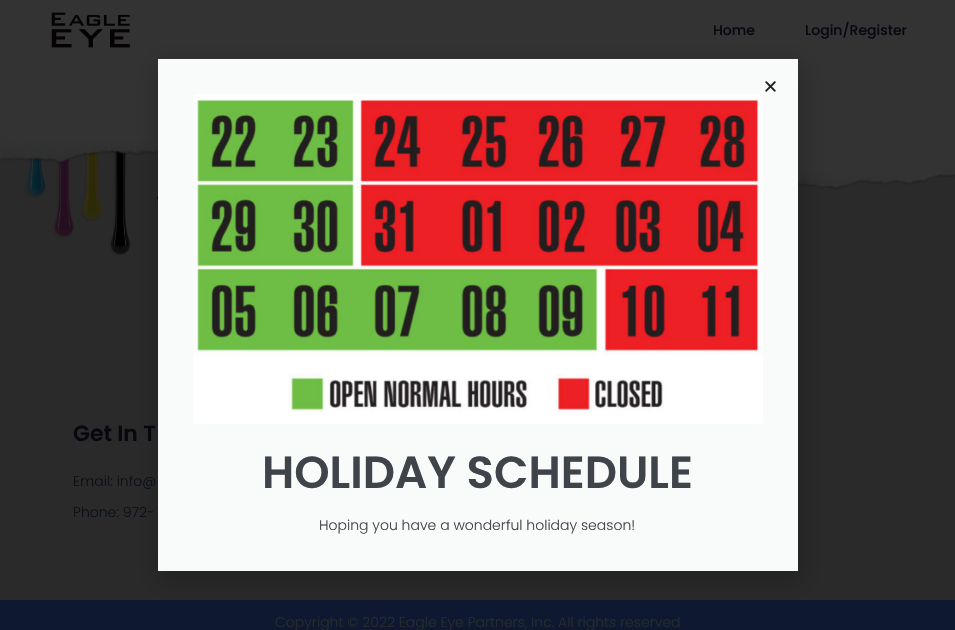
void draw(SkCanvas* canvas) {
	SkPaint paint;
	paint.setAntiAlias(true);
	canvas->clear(0xff333333);
	canvas->drawImageRect(SkImages::DeferredFromEncodedData(SkData::MakeFromFileName("img1.png")), SkRect::MakeXYWH(51, 12, 79, 36), SkSamplingOptions());
	SkFont f1(fontMgr->matchFamilyStyle("Poppins", SkFontStyle(500, SkFontStyle::kNormal_Width, SkFontStyle::kUpright_Slant)), 14);
	f1.setSubpixel(true);
	paint.setColor(0xff06070f);
	canvas->drawString("Home", 713, 35, f1, paint);
	canvas->drawString("Login/Register", 805, 35, f1, paint);
	paint.setColor(0xff2a2a2a);
	canvas->drawRect(SkRect::MakeXYWH(0, 132, 955, 468), paint);
	canvas->drawImageRect(SkImages::DeferredFromEncodedData(SkData::MakeFromFileName("img2.png")), SkRect::MakeXYWH(0, 132, 955, 125), SkSamplingOptions());
	SkFont f2(fontMgr->matchFamilyStyle("Poppins", SkFontStyle(600, SkFontStyle::kNormal_Width, SkFontStyle::kUpright_Slant)), 22);
	f2.setSubpixel(true);
	paint.setColor(0xff06070f);
	canvas->drawString("Get In T", 73, 441, f2, paint);
	SkFont f3(fontMgr->matchFamilyStyle("Poppins", SkFontStyle(300, SkFontStyle::kNormal_Width, SkFontStyle::kUpright_Slant)), 14);
	f3.setSubpixel(true);
	paint.setColor(0xff0a0f16);
	canvas->drawString("Email: info@", 73, 486, f3, paint);
	canvas->drawString("Phone: 972-", 73, 517, f3, paint);
	paint.setColor(0xff0e1931);
	canvas->drawRect(SkRect::MakeXYWH(0, 600, 955, 30), paint);
	paint.setColor(0xff282b2c);
	canvas->drawString("Copyright © 2022 Eagle Eye Partners, Inc. All rights reserved", 275, 627, f3, paint);
	paint.setColor(0x33000000);
	paint.setMaskFilter(SkMaskFilter::MakeBlur(kNormal_SkBlurStyle, 11.5));
	canvas->drawRect(SkRect::MakeXYWH(157, 64, 646, 518), paint);
	paint.setMaskFilter(nullptr);
	paint.setColor(0xfff9fafa);
	canvas->drawRect(SkRect::MakeXYWH(158, 59, 640, 512), paint);
	canvas->drawImageRect(SkImages::DeferredFromEncodedData(SkData::MakeFromFileName("img3.png")), SkRect::MakeXYWH(765, 81, 11, 11), SkSamplingOptions());
	canvas->drawImageRect(SkImages::DeferredFromEncodedData(SkData::MakeFromFileName("img4.png")), SkRect::MakeXYWH(193, 94, 570, 330), SkSamplingOptions());
	SkFont f4(fontMgr->matchFamilyStyle("Poppins", SkFontStyle(600, SkFontStyle::kNormal_Width, SkFontStyle::kUpright_Slant)), 45);
	f4.setSubpixel(true);
	paint.setColor(0xff3f444b);
	canvas->drawString("HOLIDAY SCHEDULE", 262, 488, f4, paint);
	canvas->drawString("Hoping you have a wonderful holiday season!", 319, 530, f3, paint);
}
